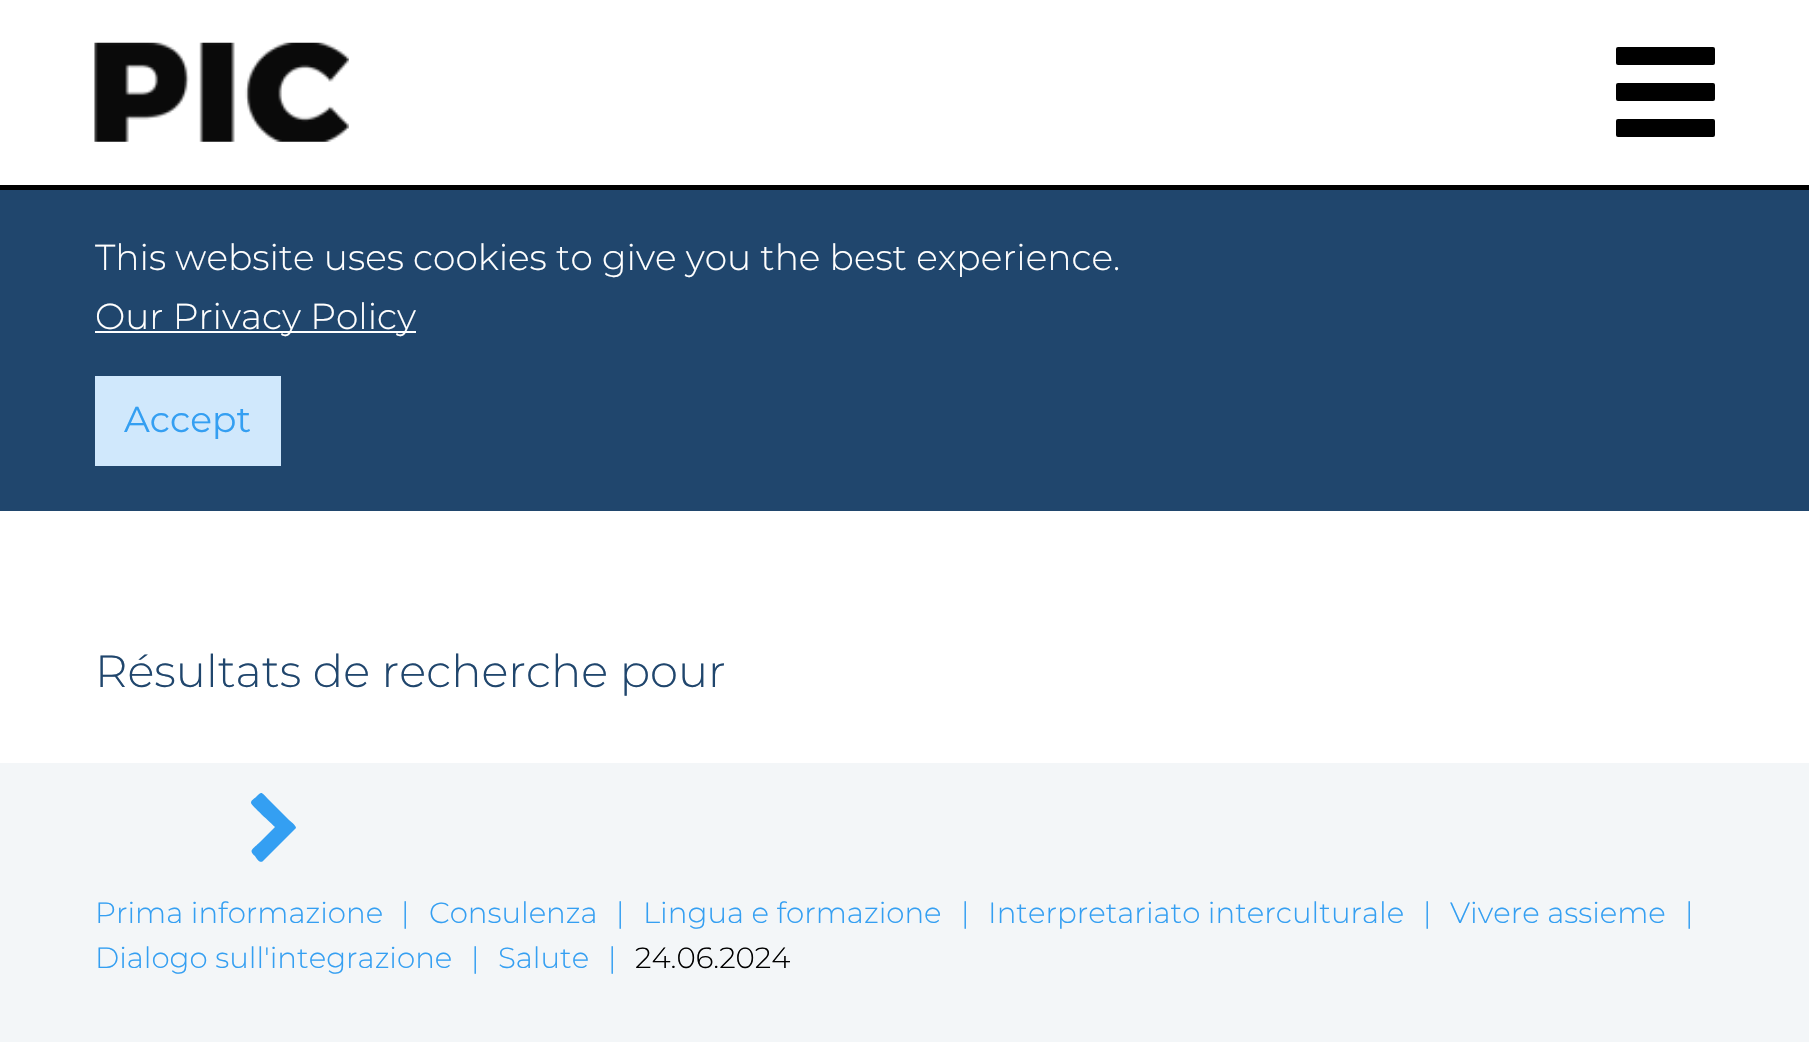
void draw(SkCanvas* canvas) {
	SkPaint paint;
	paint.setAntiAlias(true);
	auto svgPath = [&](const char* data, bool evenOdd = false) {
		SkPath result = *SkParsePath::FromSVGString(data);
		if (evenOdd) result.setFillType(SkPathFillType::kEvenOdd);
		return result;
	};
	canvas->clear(0xffffffff);
	paint.setColor(0xff000000);
	canvas->drawRect(SkRect::MakeXYWH(0, 185, 1809, 5), paint);
	canvas->drawImageRect(SkImages::DeferredFromEncodedData(SkData::MakeFromFileName("img1.png")), SkRect::MakeXYWH(94, 42, 255, 100), SkSamplingOptions());
	canvas->drawRoundRect(SkRect::MakeXYWH(1616, 47, 99, 18), 2, 2, paint);
	canvas->drawRoundRect(SkRect::MakeXYWH(1616, 83, 99, 18), 2, 2, paint);
	canvas->drawRoundRect(SkRect::MakeXYWH(1616, 119, 99, 18), 2, 2, paint);
	paint.setColor(0xff20466d);
	canvas->drawRect(SkRect::MakeXYWH(0, 190, 1809, 321), paint);
	SkFont f1(fontMgr->matchFamilyStyle("Montserrat", SkFontStyle(300, SkFontStyle::kNormal_Width, SkFontStyle::kUpright_Slant)), 36);
	f1.setSubpixel(true);
	paint.setColor(0xffffffff);
	canvas->drawString("This website uses cookies to give you the best experience.", 95, 270, f1, paint);
	canvas->drawRect(SkRect::MakeXYWH(95, 331, 321, 2), paint);
	canvas->drawString("Our Privacy Policy", 95, 329, f1, paint);
	paint.setColor(0xffd0e8fc);
	canvas->drawRect(SkRect::MakeXYWH(95, 376, 186, 90), paint);
	SkFont f2(fontMgr->matchFamilyStyle("Montserrat", SkFontStyle::Normal()), 36);
	f2.setSubpixel(true);
	paint.setColor(0xff349ff2);
	canvas->drawString("Accept", 124, 432, f2, paint);
	SkFont f3(fontMgr->matchFamilyStyle("Montserrat", SkFontStyle(300, SkFontStyle::kNormal_Width, SkFontStyle::kUpright_Slant)), 45);
	f3.setSubpixel(true);
	paint.setColor(0xff20466d);
	canvas->drawString("Résultats de recherche pour", 95, 687, f3, paint);
	paint.setColor(0xfff3f6f8);
	canvas->drawRect(SkRect::MakeXYWH(0, 763, 1809, 279), paint);
	paint.setColor(0xff349ff2);
	canvas->drawPath(svgPath("M295 829L263 861C260 864 256 858 255 856C248 850 253 849 260 842L275 827C272 824 251 805 251 803C251 800 254 799 256 797C262 791 261 792 268 799L289 820C290 821 296 825 296 828Z"), paint);
	SkFont f4(fontMgr->matchFamilyStyle("Montserrat", SkFontStyle(300, SkFontStyle::kNormal_Width, SkFontStyle::kUpright_Slant)), 29.25);
	f4.setSubpixel(true);
	canvas->drawString("Prima informazione", 95, 923, f4, paint);
	canvas->drawString("|", 401, 923, f4, paint);
	canvas->drawString("Consulenza", 429, 923, f4, paint);
	canvas->drawString("|", 616, 923, f4, paint);
	canvas->drawString("Lingua e formazione", 643, 923, f4, paint);
	canvas->drawString("|", 961, 923, f4, paint);
	canvas->drawString("Interpretariato interculturale", 988, 923, f4, paint);
	canvas->drawString("|", 1423, 923, f4, paint);
	canvas->drawString("Vivere assieme", 1450, 923, f4, paint);
	canvas->drawString("|", 1685, 923, f4, paint);
	canvas->drawString("Dialogo sull'integrazione", 95, 968, f4, paint);
	canvas->drawString("|", 471, 968, f4, paint);
	canvas->drawString("Salute", 498, 968, f4, paint);
	canvas->drawString("|", 608, 968, f4, paint);
	paint.setColor(0xff000000);
	canvas->drawString("24.06.2024", 635, 968, f4, paint);
}
